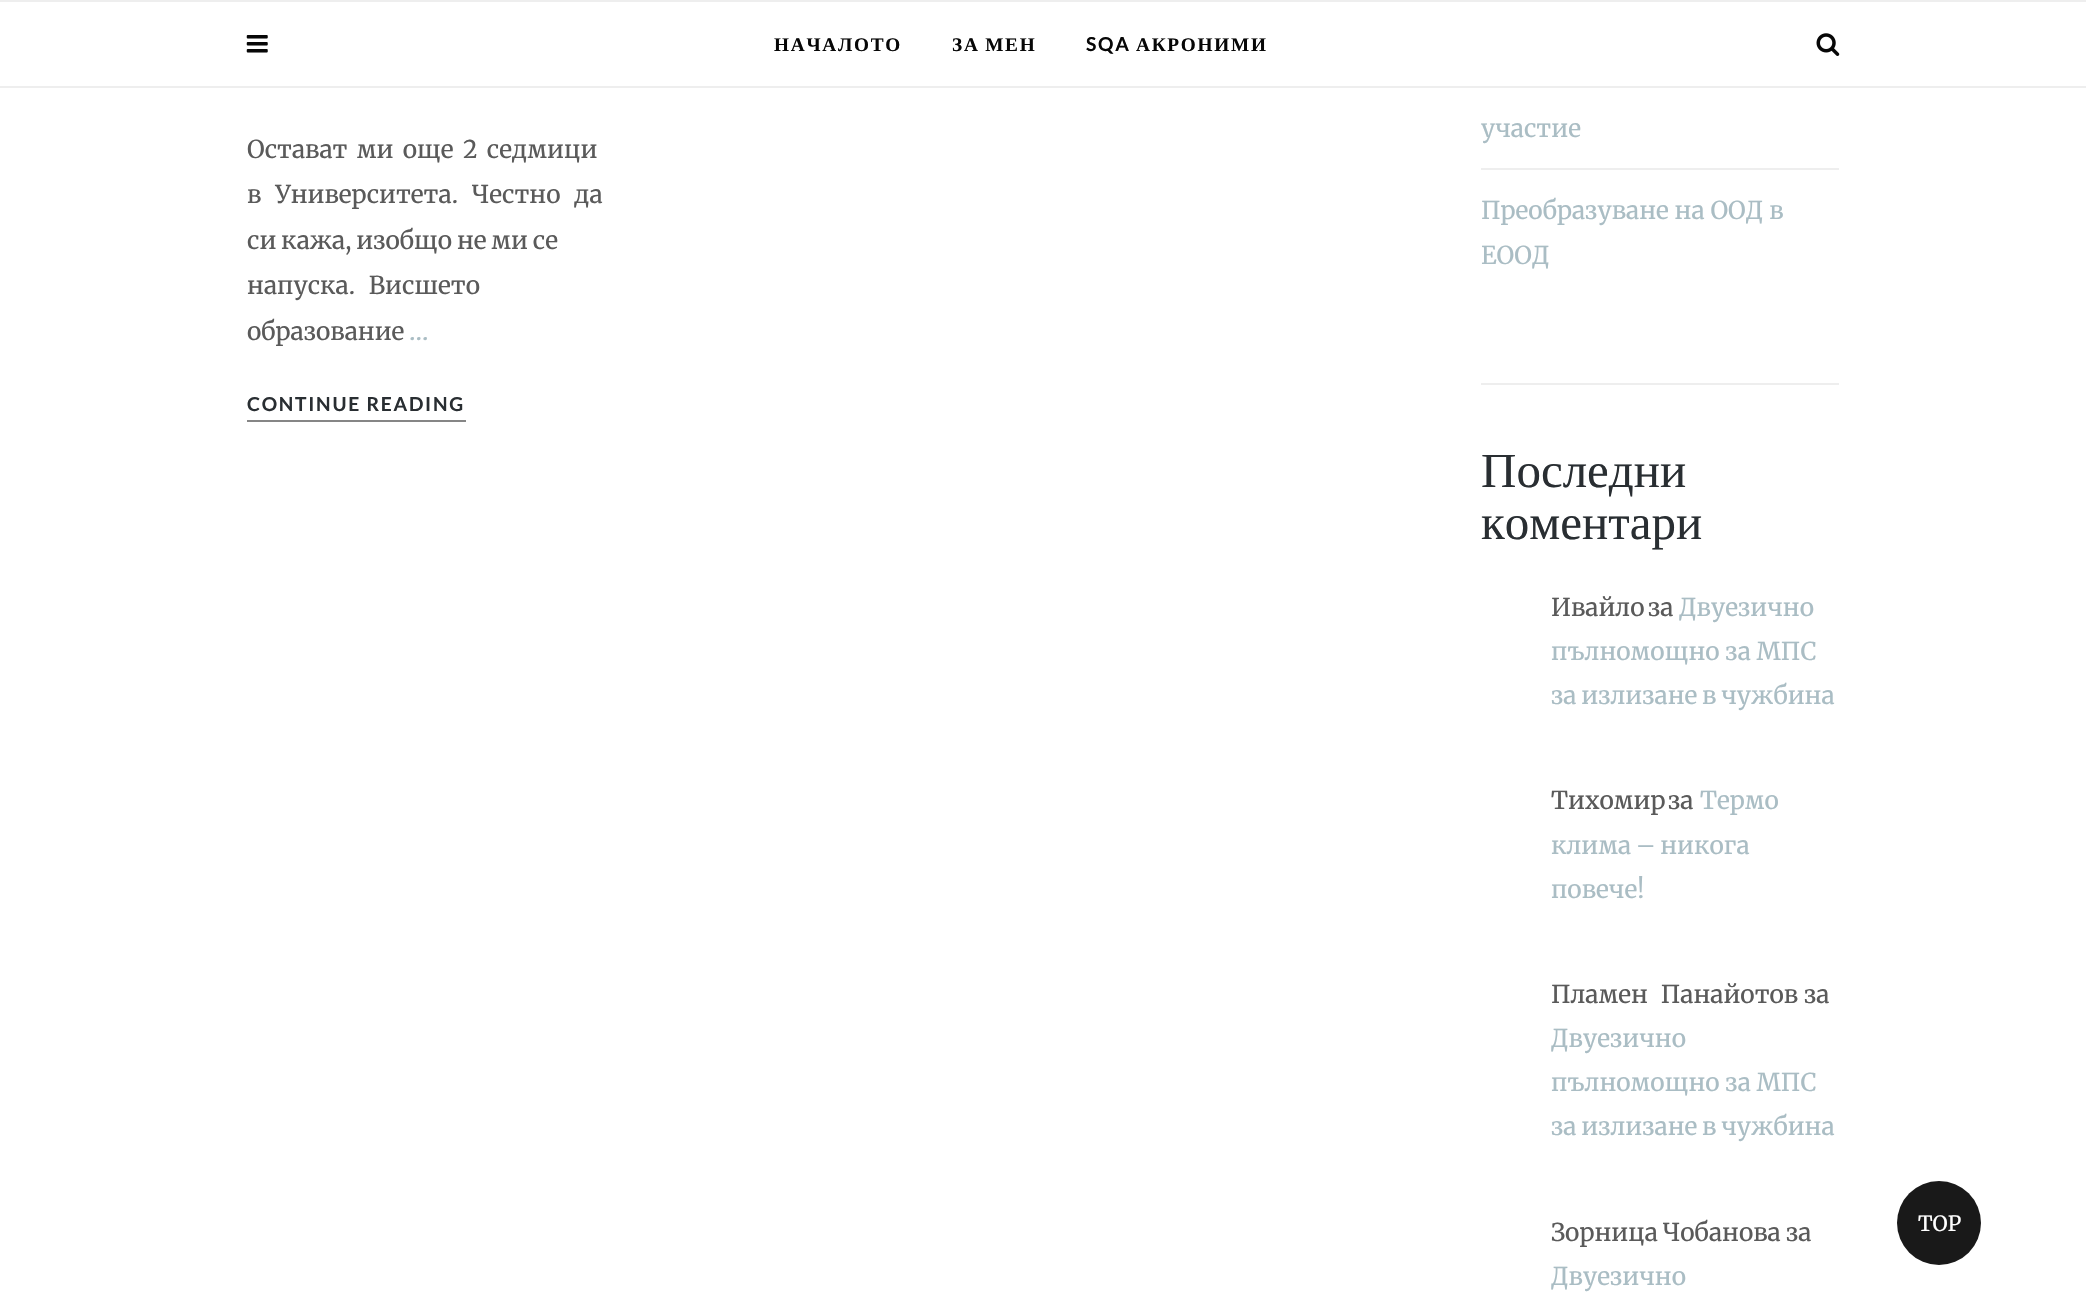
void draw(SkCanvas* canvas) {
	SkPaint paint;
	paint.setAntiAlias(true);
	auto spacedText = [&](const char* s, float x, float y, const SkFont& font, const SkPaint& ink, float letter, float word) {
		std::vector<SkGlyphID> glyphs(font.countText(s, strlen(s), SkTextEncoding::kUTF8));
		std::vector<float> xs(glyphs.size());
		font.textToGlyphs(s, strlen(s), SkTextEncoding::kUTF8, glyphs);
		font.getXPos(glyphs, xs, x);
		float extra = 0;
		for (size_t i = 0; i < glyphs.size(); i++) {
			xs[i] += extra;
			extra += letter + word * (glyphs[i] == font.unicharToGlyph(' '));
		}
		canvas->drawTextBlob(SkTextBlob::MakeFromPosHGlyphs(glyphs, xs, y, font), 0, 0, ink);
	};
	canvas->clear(0xffffffff);
	paint.setColor(0xffeeeeee);
	canvas->drawRect(SkRect::MakeXYWH(0, 0, 2086, 2), paint);
	canvas->drawRect(SkRect::MakeXYWH(0, 86, 2086, 2), paint);
	canvas->drawImageRect(SkImages::DeferredFromEncodedData(SkData::MakeFromFileName("img1.png")), SkRect::MakeXYWH(246, 35, 22, 18), SkSamplingOptions());
	SkFont f1(fontMgr->matchFamilyStyle("Liberation Serif", SkFontStyle::Bold()), 19.25);
	f1.setSubpixel(true);
	paint.setColor(0xff070707);
	spacedText("НАЧАЛОТО", 774, 51, f1, paint, 1.75, 0);
	spacedText("ЗА МЕН", 952, 51, f1, paint, 1.75, -1);
	SkFont f2(fontMgr->matchFamilyStyle("Lato", SkFontStyle::Bold()), 19.25);
	f2.setSubpixel(true);
	spacedText("SQA", 1086, 51, f2, paint, 1.75, 0);
	spacedText("АКРОНИМИ", 1136, 51, f1, paint, 1.75, 0);
	canvas->drawImageRect(SkImages::DeferredFromEncodedData(SkData::MakeFromFileName("img2.png")), SkRect::MakeXYWH(1816, 33, 24, 23), SkSamplingOptions());
	SkFont f3(fontMgr->matchFamilyStyle("Merriweather", SkFontStyle::Normal()), 24.5);
	f3.setSubpixel(true);
	paint.setColor(0xff5a5a5a);
	spacedText("Остават ми още 2 седмици", 247, 158, f3, paint, 0, 3.5);
	spacedText("в Университета. Честно да", 247, 203, f3, paint, 0, 8);
	spacedText("си кажа, изобщо не ми се", 247, 249, f3, paint, 0, -1);
	spacedText("напуска. Висшето", 247, 294, f3, paint, 0, 8);
	canvas->drawString("образование", 247, 340, f3, paint);
	paint.setColor(0xffaabdc4);
	canvas->drawString("…", 409, 340, f3, paint);
	paint.setColor(0xff292e32);
	spacedText("CONTINUE READING", 247, 411, f2, paint, 1.75, 0);
	paint.setColor(0xff868686);
	canvas->drawRect(SkRect::MakeXYWH(247, 420, 219, 2), paint);
	paint.setColor(0xffeeeeee);
	canvas->drawRect(SkRect::MakeXYWH(1481, 383, 358, 2), paint);
	canvas->drawRect(SkRect::MakeXYWH(1481, 168, 358, 2), paint);
	paint.setColor(0xffaabdc4);
	canvas->drawString("участие", 1481, 137, f3, paint);
	canvas->drawString("Преобразуване на ООД в", 1481, 219, f3, paint);
	canvas->drawString("ЕООД", 1481, 264, f3, paint);
	SkFont f4(fontMgr->matchFamilyStyle("Liberation Serif", SkFontStyle::Normal()), 49);
	f4.setSubpixel(true);
	paint.setColor(0xff292e32);
	canvas->drawString("Последни", 1481, 487, f4, paint);
	canvas->drawString("коментари", 1481, 539, f4, paint);
	paint.setColor(0xff5a5a5a);
	canvas->drawString("Ивайло", 1551, 616, f3, paint);
	canvas->drawString("за", 1648, 616, f3, paint);
	paint.setColor(0xffaabdc4);
	canvas->drawString("Двуезично", 1679, 616, f3, paint);
	canvas->drawString("пълномощно за МПС", 1551, 660, f3, paint);
	spacedText("за излизане в чужбина", 1551, 704, f3, paint, 0, -1);
	paint.setColor(0xff5a5a5a);
	canvas->drawString("Тихомир", 1551, 809, f3, paint);
	canvas->drawString("за", 1668, 809, f3, paint);
	paint.setColor(0xffaabdc4);
	canvas->drawString("Термо", 1700, 809, f3, paint);
	spacedText("клима – никога", 1551, 854, f3, paint, 0, -1);
	canvas->drawString("повече!", 1551, 898, f3, paint);
	paint.setColor(0xff5a5a5a);
	spacedText("Пламен Панайотов", 1551, 1003, f3, paint, 0, 7);
	canvas->drawString("за", 1804, 1003, f3, paint);
	paint.setColor(0xffaabdc4);
	canvas->drawString("Двуезично", 1551, 1047, f3, paint);
	canvas->drawString("пълномощно за МПС", 1551, 1091, f3, paint);
	spacedText("за излизане в чужбина", 1551, 1135, f3, paint, 0, -1);
	paint.setColor(0xff5a5a5a);
	spacedText("Зорница Чобанова", 1551, 1241, f3, paint, 0, -1);
	canvas->drawString("за", 1786, 1241, f3, paint);
	paint.setColor(0xffaabdc4);
	canvas->drawString("Двуезично", 1551, 1285, f3, paint);
	paint.setColor(0xff191919);
	canvas->drawCircle(1939, 1223, 42, paint);
	SkFont f5(fontMgr->matchFamilyStyle("Merriweather", SkFontStyle::Normal()), 21);
	f5.setSubpixel(true);
	paint.setColor(0xffffffff);
	canvas->drawString("TOP", 1918, 1231, f5, paint);
}
